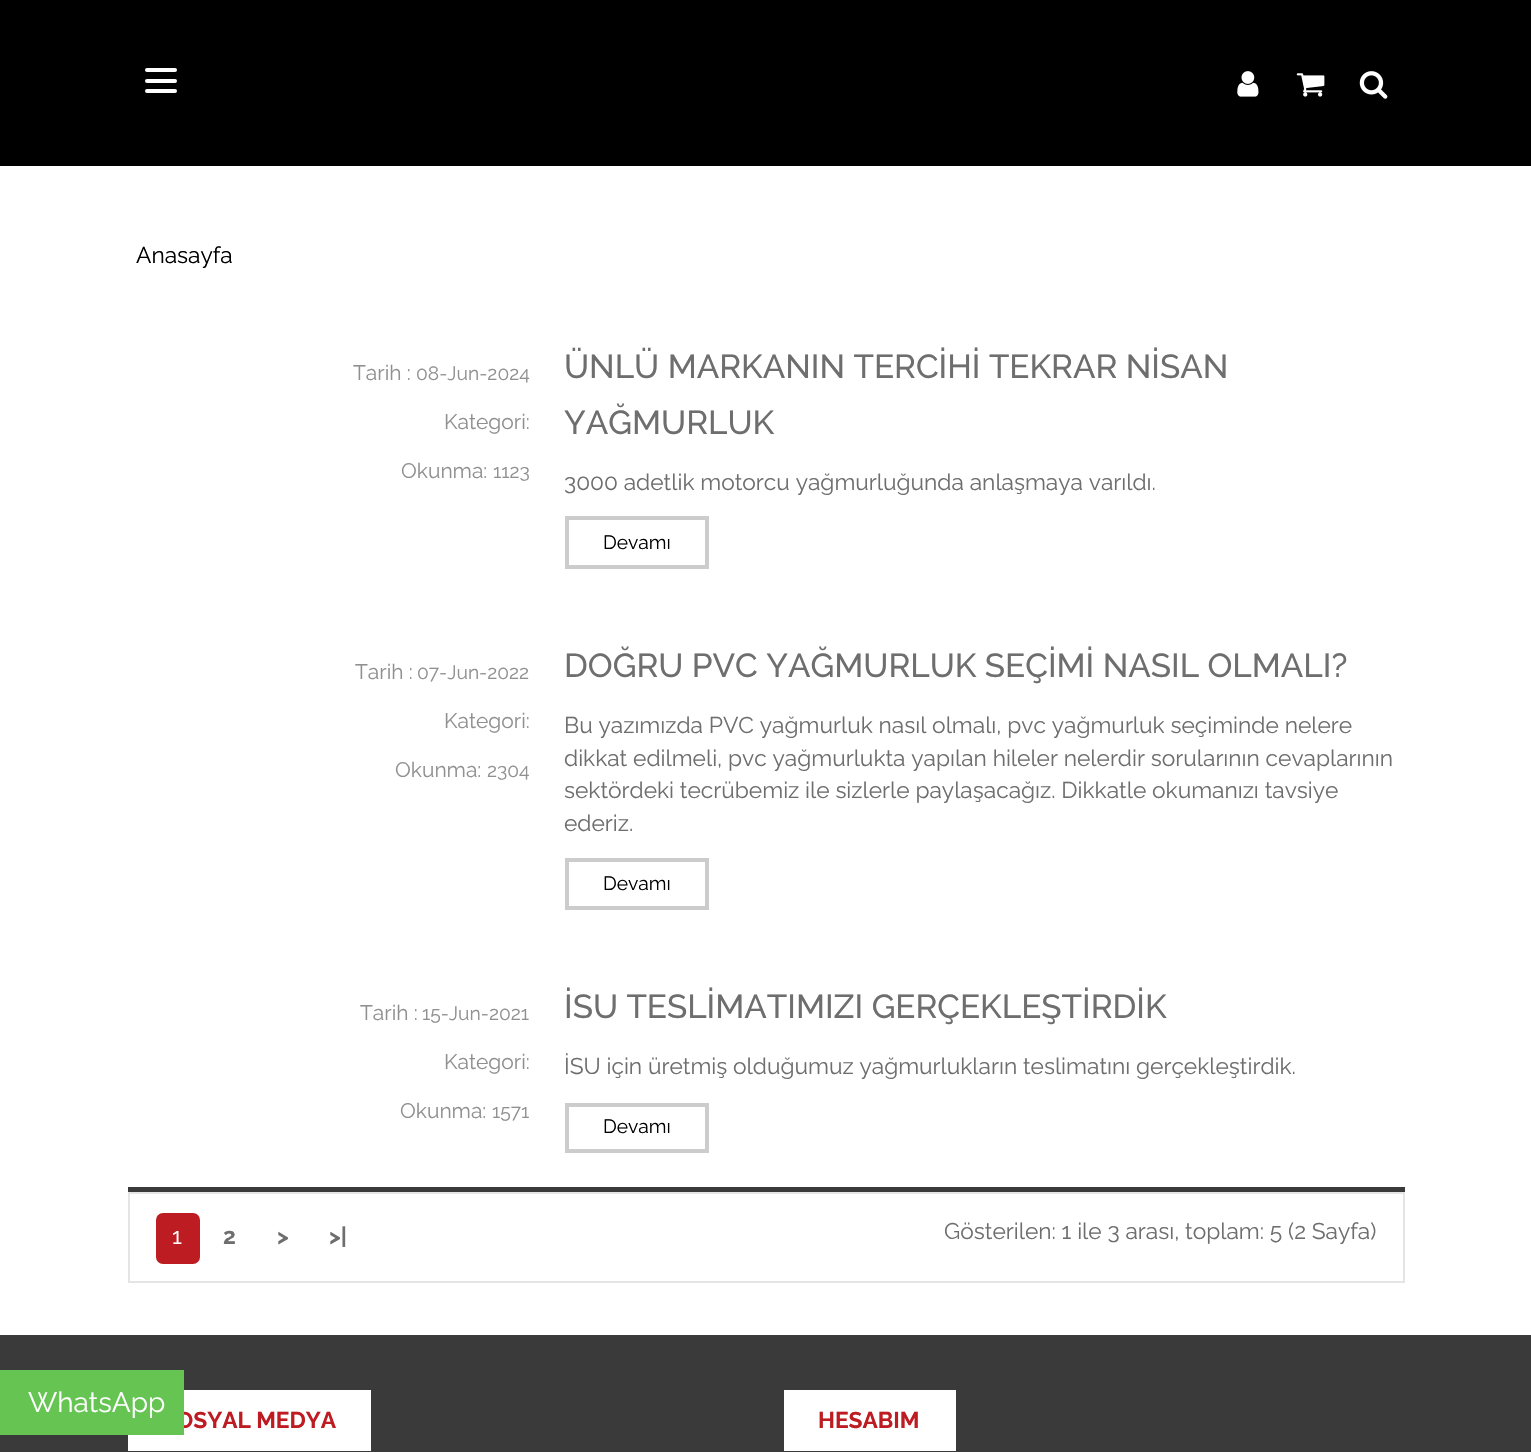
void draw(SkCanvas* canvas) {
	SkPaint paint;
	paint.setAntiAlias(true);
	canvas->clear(0xffffffff);
	paint.setColor(0xff000000);
	canvas->drawRect(SkRect::MakeXYWH(0, 0, 1531, 166), paint);
	paint.setColor(0xffffffff);
	canvas->drawRoundRect(SkRect::MakeXYWH(145, 68, 32, 4), 2, 2, paint);
	canvas->drawRoundRect(SkRect::MakeXYWH(145, 79, 32, 4), 2, 2, paint);
	canvas->drawRoundRect(SkRect::MakeXYWH(145, 89, 32, 4), 2, 2, paint);
	canvas->drawImageRect(SkImages::DeferredFromEncodedData(SkData::MakeFromFileName("img1.png")), SkRect::MakeXYWH(1237, 71, 22, 26), SkSamplingOptions());
	canvas->drawImageRect(SkImages::DeferredFromEncodedData(SkData::MakeFromFileName("img2.png")), SkRect::MakeXYWH(1296, 73, 29, 24), SkSamplingOptions());
	canvas->drawImageRect(SkImages::DeferredFromEncodedData(SkData::MakeFromFileName("img3.png")), SkRect::MakeXYWH(1359, 71, 29, 28), SkSamplingOptions());
	SkFont f1(fontMgr->matchFamilyStyle("Raleway", SkFontStyle::Normal()), 22.75);
	f1.setSubpixel(true);
	paint.setColor(0xff000000);
	canvas->drawString("Anasayfa", 136, 263, f1, paint);
	SkFont f2(fontMgr->matchFamilyStyle("Raleway", SkFontStyle::Normal()), 21);
	f2.setSubpixel(true);
	paint.setColor(0xff909090);
	canvas->drawString("Tarih :", 353, 380, f2, paint);
	SkFont f3(fontMgr->matchFamilyStyle("Raleway", SkFontStyle::Normal()), 19.25);
	f3.setSubpixel(true);
	canvas->drawString("08-Jun-2024", 416, 380, f3, paint);
	canvas->drawString("Kategori:", 444, 429, f2, paint);
	canvas->drawString("Okunma:", 401, 478, f2, paint);
	canvas->drawString("1123", 493, 478, f3, paint);
	SkFont f4(fontMgr->matchFamilyStyle("Raleway", SkFontStyle(500, SkFontStyle::kNormal_Width, SkFontStyle::kUpright_Slant)), 33.25);
	f4.setSubpixel(true);
	paint.setColor(0xff6e6e6e);
	canvas->drawString("ÜNLÜ MARKANIN TERCİHİ TEKRAR NİSAN", 564, 378, f4, paint);
	canvas->drawString("YAĞMURLUK", 564, 434, f4, paint);
	canvas->drawString("3000 adetlik motorcu yağmurluğunda anlaşmaya varıldı.", 564, 490, f1, paint);
	paint.setStroke(true);
	paint.setStrokeWidth(4);
	paint.setColor(0xffcccccc);
	canvas->drawRect(SkRect::MakeXYWH(567, 518, 140, 49), paint);
	paint.setStroke(false);
	paint.setColor(0xff000000);
	canvas->drawString("Devamı", 603, 549, f3, paint);
	paint.setColor(0xff909090);
	canvas->drawString("Tarih :", 355, 679, f2, paint);
	canvas->drawString("07-Jun-2022", 417, 679, f3, paint);
	canvas->drawString("Kategori:", 444, 728, f2, paint);
	canvas->drawString("Okunma:", 395, 777, f2, paint);
	canvas->drawString("2304", 487, 777, f3, paint);
	paint.setColor(0xff6e6e6e);
	canvas->drawString("DOĞRU PVC YAĞMURLUK SEÇİMİ NASIL OLMALI?", 564, 677, f4, paint);
	canvas->drawString("Bu yazımızda PVC yağmurluk nasıl olmalı, pvc yağmurluk seçiminde nelere", 564, 733, f1, paint);
	canvas->drawString("dikkat edilmeli, pvc yağmurlukta yapılan hileler nelerdir sorularının cevaplarının", 564, 766, f1, paint);
	canvas->drawString("sektördeki tecrübemiz ile sizlerle paylaşacağız. Dikkatle okumanızı tavsiye", 564, 798, f1, paint);
	canvas->drawString("ederiz.", 564, 831, f1, paint);
	paint.setStroke(true);
	paint.setColor(0xffcccccc);
	canvas->drawRect(SkRect::MakeXYWH(567, 860, 140, 48), paint);
	paint.setStroke(false);
	paint.setColor(0xff000000);
	canvas->drawString("Devamı", 603, 890, f3, paint);
	paint.setColor(0xff909090);
	canvas->drawString("Tarih :", 360, 1020, f2, paint);
	canvas->drawString("15-Jun-2021", 422, 1020, f3, paint);
	canvas->drawString("Kategori:", 444, 1069, f2, paint);
	canvas->drawString("Okunma:", 400, 1118, f2, paint);
	canvas->drawString("1571", 492, 1118, f3, paint);
	paint.setColor(0xff6e6e6e);
	canvas->drawString("İSU TESLİMATIMIZI GERÇEKLEŞTİRDİK", 564, 1018, f4, paint);
	canvas->drawString("İSU için üretmiş olduğumuz yağmurlukların teslimatını gerçekleştirdik.", 564, 1074, f1, paint);
	paint.setStroke(true);
	paint.setColor(0xffcccccc);
	canvas->drawRect(SkRect::MakeXYWH(567, 1105, 140, 46), paint);
	paint.setStroke(false);
	paint.setColor(0xff000000);
	canvas->drawString("Devamı", 603, 1133, f3, paint);
	paint.setColor(0xff3a3a3a);
	canvas->drawRect(SkRect::MakeXYWH(128, 1187, 1277, 5), paint);
	paint.setStroke(true);
	paint.setStrokeWidth(2);
	paint.setColor(0xffe5e5e5);
	canvas->drawRect(SkRect::MakeXYWH(129, 1193, 1275, 89), paint);
	paint.setStroke(false);
	paint.setColor(0xffbd1c22);
	canvas->drawRoundRect(SkRect::MakeXYWH(156, 1213, 44, 51), 7, 7, paint);
	paint.setColor(0xffffffff);
	canvas->drawString("1", 172, 1244, f1, paint);
	SkFont f5(fontMgr->matchFamilyStyle("Raleway", SkFontStyle::Bold()), 22.75);
	f5.setSubpixel(true);
	paint.setColor(0xff6e6e6e);
	canvas->drawString("2", 223, 1244, f5, paint);
	canvas->drawString(">", 277, 1244, f5, paint);
	canvas->drawString(">|", 329, 1244, f5, paint);
	canvas->drawString("Gösterilen: 1 ile 3 arası, toplam: 5 (2 Sayfa)", 944, 1239, f1, paint);
	paint.setColor(0xff3a3a3a);
	canvas->drawRect(SkRect::MakeXYWH(0, 1335, 1531, 117), paint);
	paint.setColor(0xffffffff);
	canvas->drawRect(SkRect::MakeXYWH(128, 1390, 243, 61), paint);
	paint.setColor(0xffbd1c22);
	canvas->drawString("OSYAL MEDYA", 176, 1428, f5, paint);
	paint.setColor(0xff65c452);
	canvas->drawRect(SkRect::MakeXYWH(0, 1370, 184, 65), paint);
	SkFont f6(fontMgr->matchFamilyStyle("Raleway", SkFontStyle::Normal()), 28);
	f6.setSubpixel(true);
	paint.setColor(0xffffffff);
	canvas->drawString("WhatsApp", 28, 1412, f6, paint);
	canvas->drawRect(SkRect::MakeXYWH(784, 1390, 172, 61), paint);
	paint.setColor(0xffbd1c22);
	canvas->drawString("HESABIM", 818, 1428, f5, paint);
}
